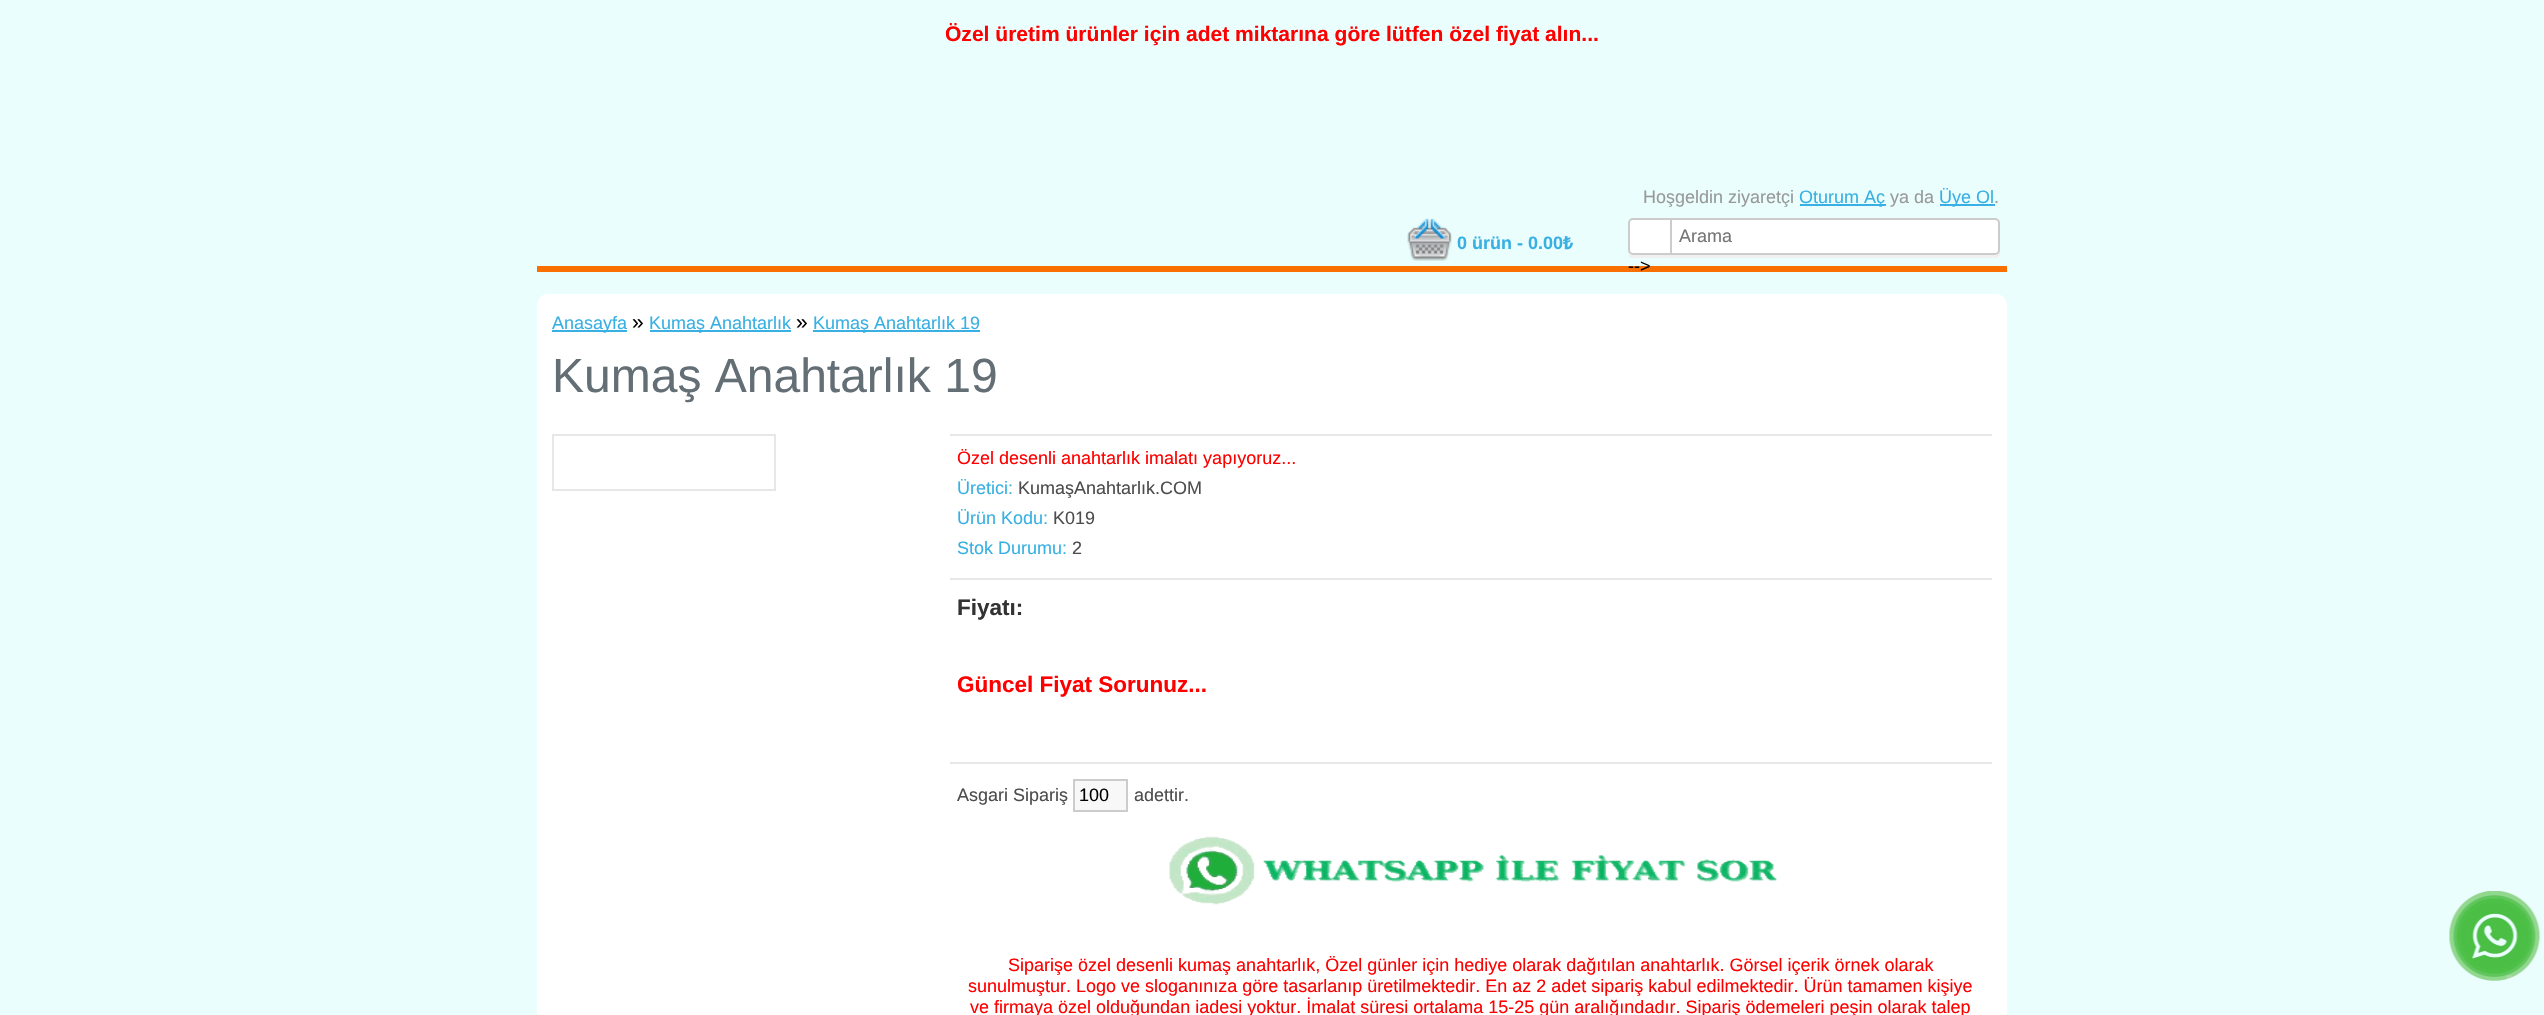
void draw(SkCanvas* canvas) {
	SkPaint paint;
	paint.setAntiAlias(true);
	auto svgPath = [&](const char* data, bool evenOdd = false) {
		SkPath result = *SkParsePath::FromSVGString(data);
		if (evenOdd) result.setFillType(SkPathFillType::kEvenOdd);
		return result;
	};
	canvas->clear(0xffeafefd);
	SkFont f1(fontMgr->matchFamilyStyle("Liberation Sans", SkFontStyle::Bold()), 21.05);
	f1.setSubpixel(true);
	paint.setColor(0xffff0000);
	canvas->drawString("Özel üretim ürünler için adet miktarına göre lütfen özel fiyat alın...", 945, 41, f1, paint);
	SkFont f2(fontMgr->matchFamilyStyle("Liberation Sans", SkFontStyle::Normal()), 18);
	f2.setSubpixel(true);
	paint.setColor(0xff999999);
	canvas->drawString("Hoşgeldin ziyaretçi", 1643, 203, f2, paint);
	paint.setColor(0xff38b0e3);
	canvas->drawRect(SkRect::MakeXYWH(1800, 204, 86, 2), paint);
	canvas->drawString("Oturum Aç", 1799, 203, f2, paint);
	paint.setColor(0xff999999);
	canvas->drawString("ya da", 1890, 203, f2, paint);
	paint.setColor(0xff38b0e3);
	canvas->drawRect(SkRect::MakeXYWH(1940, 204, 55, 2), paint);
	canvas->drawString("Üye Ol", 1939, 203, f2, paint);
	paint.setColor(0xff999999);
	canvas->drawString(".", 1994, 203, f2, paint);
	canvas->drawImageRect(SkImages::DeferredFromEncodedData(SkData::MakeFromFileName("img1.png")), SkRect::MakeXYWH(1407, 218, 45, 43), SkSamplingOptions());
	SkFont f3(fontMgr->matchFamilyStyle("Liberation Sans", SkFontStyle::Bold()), 18);
	f3.setSubpixel(true);
	paint.setColor(0xff38b0e3);
	canvas->drawString("0 ürün - 0.00", 1457, 249, f3, paint);
	SkFont f4(fontMgr->matchFamilyStyle("Noto Sans", SkFontStyle::Bold()), 18);
	f4.setSubpixel(true);
	canvas->drawString("₺", 1563, 249, f4, paint);
	paint.setColor(0xfff0f0f0);
	canvas->drawPath(svgPath("M1628 253C1628 256 1630 258 1633 258H1995C1998 258 2000 256 2000 253V226V224V250C2000 253 1997 255 1995 255H1632C1630 255 1629 254 1628 253Z"), paint);
	paint.setColor(0xffffffff);
	canvas->drawRoundRect(SkRect::MakeXYWH(1629, 219, 370, 35), 4, 4, paint);
	paint.setStroke(true);
	paint.setStrokeWidth(2);
	paint.setColor(0xffcccccc);
	canvas->drawRoundRect(SkRect::MakeXYWH(1629, 219, 370, 35), 4, 4, paint);
	paint.setStroke(false);
	canvas->drawRect(SkRect::MakeXYWH(1670, 218, 2, 36), paint);
	paint.setColor(0xff757575);
	canvas->drawString("Arama", 1679, 242, f2, paint);
	paint.setColor(0xfff96f00);
	canvas->drawRect(SkRect::MakeXYWH(537, 266, 1470, 6), paint);
	paint.setColor(0xff000000);
	canvas->drawString("-->", 1628, 272, f2, paint);
	paint.setColor(0xffffffff);
	canvas->drawRoundRect(SkRect::MakeXYWH(537, 294, 1470, 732), 11, 11, paint);
	paint.setColor(0xff38b0e3);
	canvas->drawRect(SkRect::MakeXYWH(552, 330, 75, 2), paint);
	canvas->drawString("Anasayfa", 552, 329, f2, paint);
	SkFont f5(fontMgr->matchFamilyStyle("Liberation Sans", SkFontStyle::Normal()), 21);
	f5.setSubpixel(true);
	paint.setColor(0xff000000);
	canvas->drawString("»", 632, 329, f5, paint);
	paint.setColor(0xff38b0e3);
	canvas->drawRect(SkRect::MakeXYWH(650, 330, 141, 2), paint);
	canvas->drawString("Kumaş Anahtarlık", 649, 329, f2, paint);
	paint.setColor(0xff000000);
	canvas->drawString("»", 796, 329, f5, paint);
	paint.setColor(0xff38b0e3);
	canvas->drawRect(SkRect::MakeXYWH(813, 330, 167, 2), paint);
	canvas->drawString("Kumaş Anahtarlık 19", 813, 329, f2, paint);
	SkFont f6(fontMgr->matchFamilyStyle("Liberation Sans", SkFontStyle::Normal()), 48);
	f6.setSubpixel(true);
	paint.setColor(0xff636e75);
	canvas->drawString("Kumaş Anahtarlık 19", 552, 392, f6, paint);
	paint.setStroke(true);
	paint.setColor(0xffe7e7e7);
	canvas->drawRect(SkRect::MakeXYWH(553, 435, 222, 55), paint);
	paint.setStroke(false);
	canvas->drawRect(SkRect::MakeXYWH(950, 434, 1042, 2), paint);
	canvas->drawRect(SkRect::MakeXYWH(950, 578, 1042, 2), paint);
	paint.setColor(0xffff0000);
	canvas->drawString("Özel desenli anahtarlık imalatı yapıyoruz...", 957, 464, f2, paint);
	paint.setColor(0xff38b0e3);
	canvas->drawString("Üretici:", 957, 494, f2, paint);
	paint.setColor(0xff4d4d4d);
	canvas->drawString("KumaşAnahtarlık.COM", 1018, 494, f2, paint);
	paint.setColor(0xff38b0e3);
	canvas->drawString("Ürün Kodu:", 957, 524, f2, paint);
	paint.setColor(0xff4d4d4d);
	canvas->drawString("K019", 1053, 524, f2, paint);
	paint.setColor(0xff38b0e3);
	canvas->drawString("Stok Durumu:", 957, 554, f2, paint);
	paint.setColor(0xff4d4d4d);
	canvas->drawString("2", 1072, 554, f2, paint);
	paint.setColor(0xffe7e7e7);
	canvas->drawRect(SkRect::MakeXYWH(950, 762, 1042, 2), paint);
	SkFont f7(fontMgr->matchFamilyStyle("Liberation Sans", SkFontStyle::Bold()), 22.5);
	f7.setSubpixel(true);
	paint.setColor(0xff333333);
	canvas->drawString("Fiyatı:", 957, 615, f7, paint);
	paint.setColor(0xffff0000);
	canvas->drawString("Güncel Fiyat Sorunuz...", 957, 692, f7, paint);
	paint.setColor(0xff4d4d4d);
	canvas->drawString("Asgari Sipariş", 957, 801, f2, paint);
	paint.setColor(0xfff8f8f8);
	canvas->drawRect(SkRect::MakeXYWH(1074, 780, 53, 31), paint);
	paint.setStroke(true);
	paint.setColor(0xffcccccc);
	canvas->drawRect(SkRect::MakeXYWH(1074, 780, 53, 31), paint);
	paint.setStroke(false);
	paint.setColor(0xff000000);
	canvas->drawString("100", 1079, 801, f2, paint);
	paint.setColor(0xff4d4d4d);
	canvas->drawString("adettir.", 1134, 801, f2, paint);
	canvas->drawImageRect(SkImages::DeferredFromEncodedData(SkData::MakeFromFileName("img2.png")), SkRect::MakeXYWH(1169, 836, 608, 69), SkSamplingOptions());
	paint.setColor(0xffff0000);
	canvas->drawString("Siparişe özel desenli kumaş anahtarlık, Özel günler için hediye olarak dağıtılan anahtarlık. Görsel içerik örnek olarak", 1008, 971, f2, paint);
	canvas->drawString("sunulmuştur. Logo ve sloganınıza göre tasarlanıp üretilmektedir. En az 2 adet sipariş kabul edilmektedir. Ürün tamamen kişiye", 968, 992, f2, paint);
	canvas->drawString("ve firmaya özel olduğundan iadesi yoktur. İmalat süresi ortalama 15-25 gün aralığındadır. Sipariş ödemeleri peşin olarak talep", 970, 1013, f2, paint);
	canvas->drawImageRect(SkImages::DeferredFromEncodedData(SkData::MakeFromFileName("img3.png")), SkRect::MakeXYWH(2449, 891, 91, 90), SkSamplingOptions());
}
